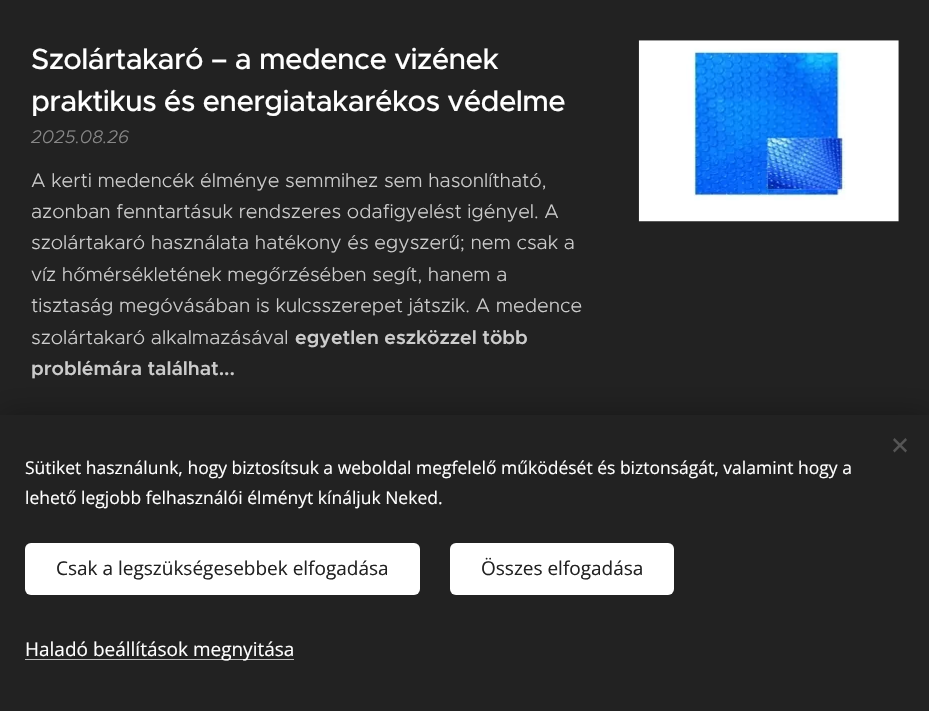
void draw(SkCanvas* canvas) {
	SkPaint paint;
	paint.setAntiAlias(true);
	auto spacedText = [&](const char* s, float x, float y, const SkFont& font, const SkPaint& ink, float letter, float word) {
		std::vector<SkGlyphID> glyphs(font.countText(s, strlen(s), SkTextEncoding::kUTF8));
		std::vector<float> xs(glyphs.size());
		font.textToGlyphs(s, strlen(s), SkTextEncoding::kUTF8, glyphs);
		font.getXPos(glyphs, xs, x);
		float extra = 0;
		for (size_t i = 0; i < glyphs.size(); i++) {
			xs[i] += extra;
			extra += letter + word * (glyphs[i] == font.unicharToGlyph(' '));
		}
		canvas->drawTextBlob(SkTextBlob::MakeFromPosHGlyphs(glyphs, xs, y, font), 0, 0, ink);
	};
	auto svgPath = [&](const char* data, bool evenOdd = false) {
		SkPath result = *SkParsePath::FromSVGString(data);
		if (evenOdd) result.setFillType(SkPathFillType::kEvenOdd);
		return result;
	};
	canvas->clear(0xff222222);
	SkFont f1(fontMgr->matchFamilyStyle("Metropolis", SkFontStyle(500, SkFontStyle::kNormal_Width, SkFontStyle::kUpright_Slant)), 29.4);
	f1.setSubpixel(true);
	paint.setColor(0xffffffff);
	spacedText("Szolártakaró – a medence vizének", 31, 69, f1, paint, -0.6, 0);
	spacedText("praktikus és energiatakarékos védelme", 31, 111, f1, paint, -0.6, 0);
	SkFont f2(fontMgr->matchFamilyStyle("Metropolis", SkFontStyle(300, SkFontStyle::kNormal_Width, SkFontStyle::kItalic_Slant)), 18.25);
	f2.setSubpixel(true);
	paint.setColor(0xff888888);
	canvas->drawString("2025.08.26", 31, 143, f2, paint);
	SkFont f3(fontMgr->matchFamilyStyle("Metropolis", SkFontStyle(300, SkFontStyle::kNormal_Width, SkFontStyle::kUpright_Slant)), 19.6);
	f3.setSubpixel(true);
	paint.setColor(0xffcccccc);
	canvas->drawString("A kerti medencék élménye semmihez sem hasonlítható,", 31, 187, f3, paint);
	canvas->drawString("azonban fenntartásuk rendszeres odafigyelést igényel. A", 31, 218, f3, paint);
	canvas->drawString("szolártakaró használata hatékony és egyszerű; nem csak a", 31, 249, f3, paint);
	canvas->drawString("víz hőmérsékletének megőrzésében segít, hanem a", 31, 281, f3, paint);
	canvas->drawString("tisztaság megóvásában is kulcsszerepet játszik. A medence", 31, 312, f3, paint);
	canvas->drawString("szolártakaró alkalmazásával", 31, 344, f3, paint);
	SkFont f4(fontMgr->matchFamilyStyle("Metropolis", SkFontStyle(600, SkFontStyle::kNormal_Width, SkFontStyle::kUpright_Slant)), 19.6);
	f4.setSubpixel(true);
	canvas->drawString("egyetlen eszközzel több", 295, 344, f4, paint);
	canvas->drawString("problémára találhat...", 31, 375, f4, paint);
	canvas->drawImageRect(SkImages::DeferredFromEncodedData(SkData::MakeFromFileName("img1.png")), SkRect::MakeXYWH(638, 40, 261, 182), SkSamplingOptions());
	paint.setColor(0x54000000);
	paint.setMaskFilter(SkMaskFilter::MakeBlur(kNormal_SkBlurStyle, 15.5));
	canvas->drawRect(SkRect::MakeXYWH(0, 415, 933, 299), paint);
	paint.setMaskFilter(nullptr);
	paint.setColor(0xff222222);
	canvas->drawRect(SkRect::MakeXYWH(0, 415, 929, 296), paint);
	paint.setColor(0xff555555);
	canvas->drawPath(svgPath("M893 450.5L905.5 438L907 440L894.5 452.5Z"), paint);
	canvas->drawPath(svgPath("M894.5 438L907 450.5L905.5 452.5L893 440Z"), paint);
	SkFont f5(fontMgr->matchFamilyStyle("Open Sans", SkFontStyle::Normal()), 17.5);
	f5.setSubpixel(true);
	paint.setColor(0xffffffff);
	canvas->drawString("Sütiket használunk, hogy biztosítsuk a weboldal megfelelő működését és biztonságát, valamint hogy a", 25, 474, f5, paint);
	canvas->drawString("lehető legjobb felhasználói élményt kínáljuk Neked.", 25, 504, f5, paint);
	canvas->drawRoundRect(SkRect::MakeXYWH(25, 543, 395, 52), 6, 6, paint);
	SkFont f6(fontMgr->matchFamilyStyle("Open Sans", SkFontStyle::Normal()), 19);
	f6.setSubpixel(true);
	paint.setColor(0xff222222);
	canvas->drawString("Csak a legszükségesebbek elfogadása", 56, 575, f6, paint);
	paint.setColor(0xffffffff);
	canvas->drawRoundRect(SkRect::MakeXYWH(450, 543, 224, 52), 6, 6, paint);
	paint.setColor(0xff222222);
	canvas->drawString("Összes elfogadása", 481, 575, f6, paint);
	paint.setColor(0xffbdbdbd);
	canvas->drawRect(SkRect::MakeXYWH(25, 659, 269, 1), paint);
	paint.setColor(0xffffffff);
	canvas->drawString("Haladó beállítások megnyitása", 25, 656, f6, paint);
}
